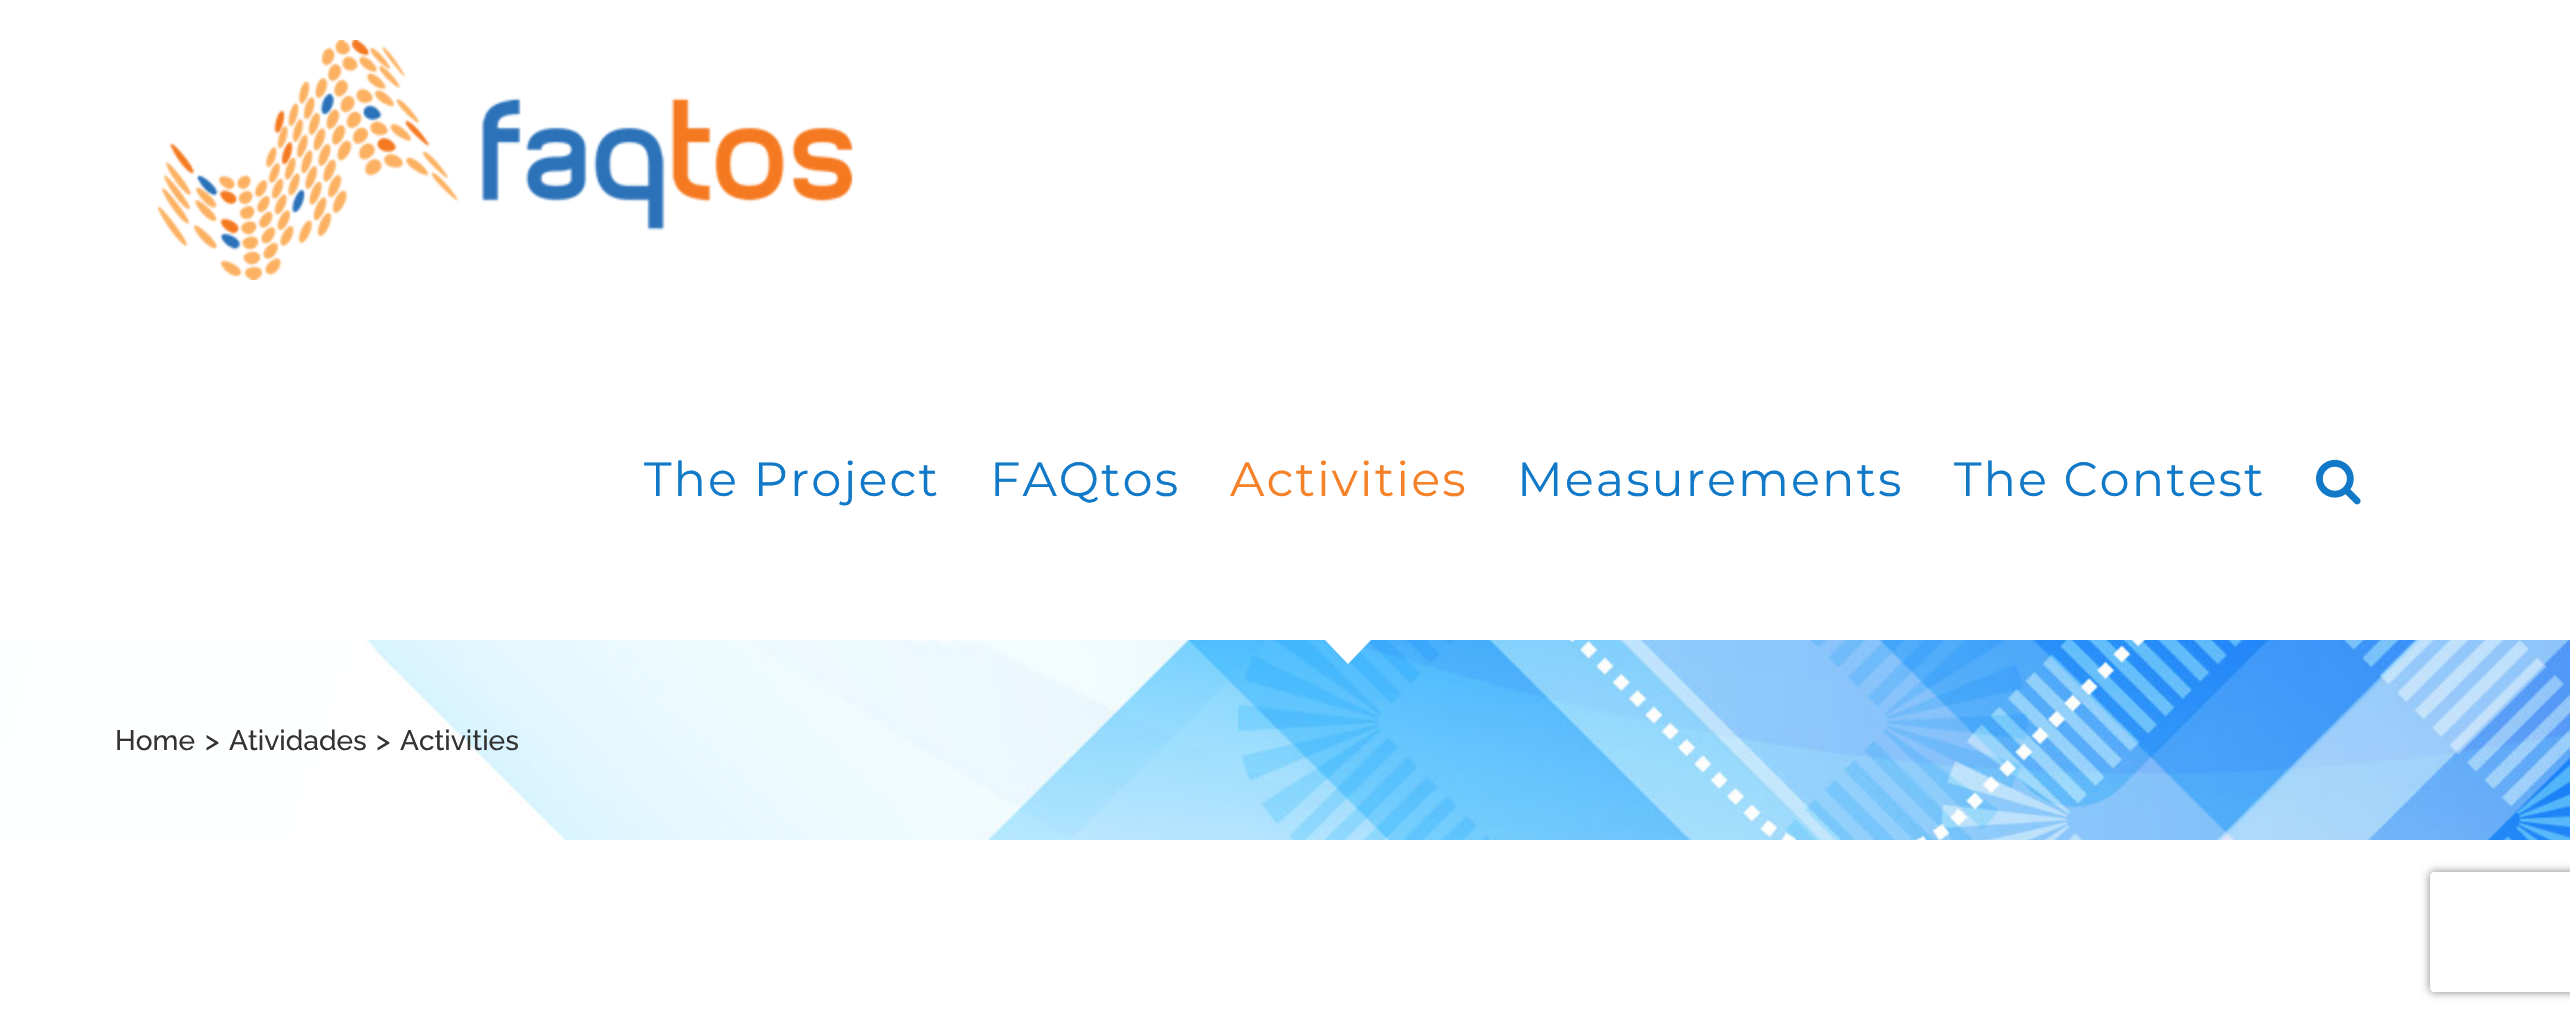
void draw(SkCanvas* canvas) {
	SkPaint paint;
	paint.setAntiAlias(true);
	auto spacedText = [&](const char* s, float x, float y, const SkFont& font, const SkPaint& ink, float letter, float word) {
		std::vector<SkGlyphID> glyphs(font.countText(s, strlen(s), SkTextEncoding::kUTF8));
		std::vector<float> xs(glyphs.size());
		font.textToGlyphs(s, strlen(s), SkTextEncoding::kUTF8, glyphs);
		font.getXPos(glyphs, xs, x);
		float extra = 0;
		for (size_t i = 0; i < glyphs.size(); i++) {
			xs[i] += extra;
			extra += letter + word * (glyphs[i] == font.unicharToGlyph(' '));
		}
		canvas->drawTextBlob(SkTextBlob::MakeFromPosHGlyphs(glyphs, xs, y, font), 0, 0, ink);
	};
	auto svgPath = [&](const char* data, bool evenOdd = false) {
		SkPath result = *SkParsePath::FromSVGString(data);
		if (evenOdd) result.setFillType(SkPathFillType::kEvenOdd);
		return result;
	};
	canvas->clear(0xffffffff);
	canvas->drawImageRect(SkImages::DeferredFromEncodedData(SkData::MakeFromFileName("img1.png")), SkRect::MakeXYWH(158, 40, 695, 240), SkSamplingOptions());
	SkFont f1(fontMgr->matchFamilyStyle("Montserrat", SkFontStyle(100, SkFontStyle::kNormal_Width, SkFontStyle::kUpright_Slant)), 48);
	f1.setSubpixel(true);
	paint.setColor(0xff1179c7);
	spacedText("The Project", 644, 496, f1, paint, 2, 0);
	spacedText("FAQtos", 990, 496, f1, paint, 2, 0);
	paint.setColor(0xfff58128);
	spacedText("Activities", 1230, 496, f1, paint, 2, 0);
	canvas->drawImageRect(SkImages::DeferredFromEncodedData(SkData::MakeFromFileName("img3.png")), SkRect::MakeXYWH(0, 640, 2570, 200), SkSamplingOptions());
	paint.setColor(0xffffffff);
	canvas->drawPath(svgPath("M1325 640L1348 664L1371 640Z"), paint);
	paint.setColor(0xff1179c7);
	spacedText("Measurements", 1517, 496, f1, paint, 2, 0);
	spacedText("The Contest", 1954, 496, f1, paint, 2, 0);
	canvas->drawImageRect(SkImages::DeferredFromEncodedData(SkData::MakeFromFileName("img2.png")), SkRect::MakeXYWH(2316, 459, 45, 46), SkSamplingOptions());
	SkFont f2(fontMgr->matchFamilyStyle("Raleway", SkFontStyle(500, SkFontStyle::kNormal_Width, SkFontStyle::kUpright_Slant)), 28);
	f2.setSubpixel(true);
	paint.setColor(0xff333333);
	canvas->drawString("Home", 115, 750, f2, paint);
	canvas->drawString(">", 205, 750, f2, paint);
	canvas->drawString("Atividades", 229, 750, f2, paint);
	canvas->drawString(">", 376, 750, f2, paint);
	canvas->drawString("Activities", 400, 750, f2, paint);
	canvas->save();
	canvas->clipPath(svgPath("M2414 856H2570V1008H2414ZM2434 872H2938C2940 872 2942 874 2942 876V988C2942 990 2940 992 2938 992H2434C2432 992 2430 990 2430 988V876C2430 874 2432 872 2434 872Z", true), true);
	paint.setColor(0xff808080);
	paint.setMaskFilter(SkMaskFilter::MakeBlur(kNormal_SkBlurStyle, 5));
	canvas->drawRoundRect(SkRect::MakeXYWH(2430, 872, 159, 120), 4, 4, paint);
	paint.setMaskFilter(nullptr);
	canvas->restore();
}
